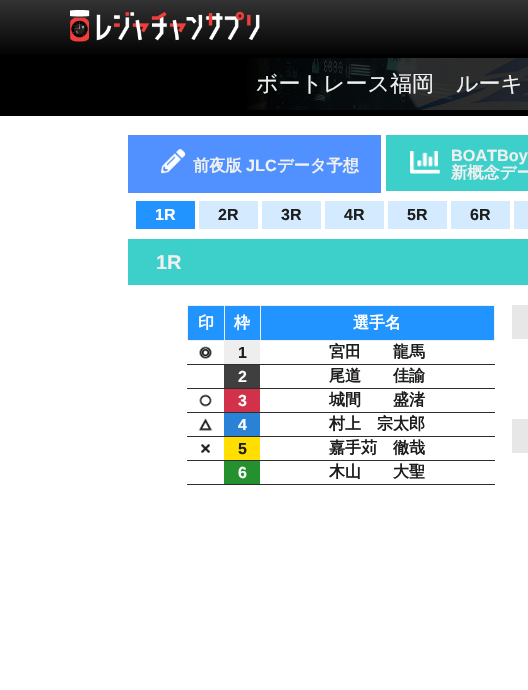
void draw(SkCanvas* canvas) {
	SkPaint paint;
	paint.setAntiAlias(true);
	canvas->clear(0xff000000);
	{
		const SkColor colors[] = {0xff333333, 0xff000000};
		const float stops[] = {0, 1};
		const SkPoint ends[] = {{512, 0}, {512, 58}};
		paint.setShader(SkGradientShader::MakeLinear(ends, colors, stops, 2, SkTileMode::kClamp));
		paint.setAlpha(255);
	}
	canvas->drawRect(SkRect::MakeXYWH(0, 0, 528, 55), paint);
	canvas->drawImageRect(SkImages::DeferredFromEncodedData(SkData::MakeFromFileName("img1.png")), SkRect::MakeXYWH(70, 10, 190, 32), SkSamplingOptions());
	canvas->drawImageRect(SkImages::DeferredFromEncodedData(SkData::MakeFromFileName("img2.png")), SkRect::MakeXYWH(247, 58, 281, 52), SkSamplingOptions());
	SkFont f1(fontMgr->matchFamilyStyle("WenQuanYi Zen Hei", SkFontStyle(500, SkFontStyle::kNormal_Width, SkFontStyle::kUpright_Slant)), 22);
	f1.setSubpixel(true);
	paint.setShader(nullptr);
	paint.setColor(0xfff0f0f0);
	canvas->drawString("ボートレース福岡　ルーキ", 256, 91, f1, paint);
	paint.setColor(0xffffffff);
	canvas->drawRect(SkRect::MakeXYWH(0, 116, 528, 574), paint);
	paint.setColor(0xff5090ff);
	canvas->drawRect(SkRect::MakeXYWH(128, 135, 253, 58), paint);
	canvas->drawImageRect(SkImages::DeferredFromEncodedData(SkData::MakeFromFileName("img3.png")), SkRect::MakeXYWH(161, 149, 25, 25), SkSamplingOptions());
	SkFont f2(fontMgr->matchFamilyStyle("WenQuanYi Zen Hei", SkFontStyle::Bold()), 16.25);
	f2.setSubpixel(true);
	paint.setColor(0xfff0f0f0);
	canvas->drawString("前夜版", 193, 171, f2, paint);
	SkFont f3(fontMgr->matchFamilyStyle("Liberation Sans", SkFontStyle::Bold()), 16.25);
	f3.setSubpixel(true);
	canvas->drawString("JLC", 246, 171, f3, paint);
	canvas->drawString("データ予想", 277, 171, f2, paint);
	paint.setColor(0xff3dd0ca);
	canvas->drawRect(SkRect::MakeXYWH(386, 135, 142, 56), paint);
	canvas->drawImageRect(SkImages::DeferredFromEncodedData(SkData::MakeFromFileName("img4.png")), SkRect::MakeXYWH(410, 151, 30, 23), SkSamplingOptions());
	paint.setColor(0xfff0f0f0);
	canvas->drawString("BOATBoy", 451, 161, f3, paint);
	canvas->drawString("新概念デー", 451, 178, f2, paint);
	paint.setColor(0xff2194ff);
	canvas->drawRect(SkRect::MakeXYWH(136, 201, 59, 28), paint);
	SkFont f4(fontMgr->matchFamilyStyle("Liberation Sans", SkFontStyle::Bold()), 16);
	f4.setSubpixel(true);
	paint.setColor(0xffffffff);
	canvas->drawString("1R", 155, 220, f4, paint);
	paint.setColor(0xffd4eaff);
	canvas->drawRect(SkRect::MakeXYWH(199, 201, 59, 28), paint);
	paint.setColor(0xff1c1d1d);
	canvas->drawString("2R", 218, 220, f4, paint);
	paint.setColor(0xffd4eaff);
	canvas->drawRect(SkRect::MakeXYWH(262, 201, 59, 28), paint);
	paint.setColor(0xff1c1d1d);
	canvas->drawString("3R", 281, 220, f4, paint);
	paint.setColor(0xffd4eaff);
	canvas->drawRect(SkRect::MakeXYWH(325, 201, 59, 28), paint);
	paint.setColor(0xff1c1d1d);
	canvas->drawString("4R", 344, 220, f4, paint);
	paint.setColor(0xffd4eaff);
	canvas->drawRect(SkRect::MakeXYWH(388, 201, 59, 28), paint);
	paint.setColor(0xff1c1d1d);
	canvas->drawString("5R", 407, 220, f4, paint);
	paint.setColor(0xffd4eaff);
	canvas->drawRect(SkRect::MakeXYWH(451, 201, 59, 28), paint);
	paint.setColor(0xff1c1d1d);
	canvas->drawString("6R", 470, 220, f4, paint);
	paint.setColor(0xffd4eaff);
	canvas->drawRect(SkRect::MakeXYWH(514, 201, 14, 28), paint);
	paint.setColor(0xff3dd0ca);
	canvas->drawRect(SkRect::MakeXYWH(128, 239, 400, 46), paint);
	SkFont f5(fontMgr->matchFamilyStyle("Liberation Sans", SkFontStyle::Bold()), 20);
	f5.setSubpixel(true);
	paint.setColor(0xfff0f0f0);
	canvas->drawString("1R", 156, 269, f5, paint);
	paint.setColor(0xff2194ff);
	canvas->drawRect(SkRect::MakeXYWH(188, 306, 36, 34), paint);
	paint.setColor(0xfff0f0f0);
	canvas->drawRect(SkRect::MakeXYWH(260, 305, 235, 1), paint);
	canvas->drawRect(SkRect::MakeXYWH(494, 305, 1, 36), paint);
	canvas->drawRect(SkRect::MakeXYWH(260, 340, 235, 1), paint);
	canvas->drawRect(SkRect::MakeXYWH(260, 305, 1, 36), paint);
	canvas->drawRect(SkRect::MakeXYWH(224, 305, 37, 1), paint);
	canvas->drawRect(SkRect::MakeXYWH(224, 340, 37, 1), paint);
	canvas->drawRect(SkRect::MakeXYWH(224, 305, 1, 36), paint);
	canvas->drawRect(SkRect::MakeXYWH(187, 305, 38, 1), paint);
	canvas->drawRect(SkRect::MakeXYWH(187, 340, 38, 1), paint);
	canvas->drawRect(SkRect::MakeXYWH(187, 305, 1, 36), paint);
	SkFont f6(fontMgr->matchFamilyStyle("WenQuanYi Zen Hei", SkFontStyle::Bold()), 16);
	f6.setSubpixel(true);
	paint.setColor(0xffffffff);
	canvas->drawString("印", 198, 328, f6, paint);
	paint.setColor(0xff2194ff);
	canvas->drawRect(SkRect::MakeXYWH(225, 306, 35, 34), paint);
	paint.setColor(0xffffffff);
	canvas->drawString("枠", 234, 328, f6, paint);
	paint.setColor(0xff2194ff);
	canvas->drawRect(SkRect::MakeXYWH(261, 306, 233, 34), paint);
	paint.setColor(0xffffffff);
	canvas->drawString("選手名", 353, 328, f6, paint);
	canvas->drawImageRect(SkImages::DeferredFromEncodedData(SkData::MakeFromFileName("img5.png")), SkRect::MakeXYWH(199, 346, 13, 13), SkSamplingOptions());
	paint.setColor(0xffeeeeee);
	canvas->drawRect(SkRect::MakeXYWH(224, 341, 36, 23), paint);
	paint.setColor(0xff1c1d1d);
	canvas->drawString("1", 238, 358, f4, paint);
	paint.setColor(0xff2e2e2e);
	canvas->drawRect(SkRect::MakeXYWH(187, 364, 308, 1), paint);
	paint.setColor(0xff1c1d1d);
	canvas->drawString("宮田　　龍馬", 329, 357, f6, paint);
	paint.setColor(0xff3f3f3f);
	canvas->drawRect(SkRect::MakeXYWH(224, 365, 36, 23), paint);
	paint.setColor(0xffffffff);
	canvas->drawString("2", 238, 382, f4, paint);
	paint.setColor(0xff2e2e2e);
	canvas->drawRect(SkRect::MakeXYWH(187, 388, 308, 1), paint);
	paint.setColor(0xff1c1d1d);
	canvas->drawString("尾道　　佳諭", 329, 381, f6, paint);
	canvas->drawImageRect(SkImages::DeferredFromEncodedData(SkData::MakeFromFileName("img6.png")), SkRect::MakeXYWH(199, 394, 13, 13), SkSamplingOptions());
	paint.setColor(0xffd13149);
	canvas->drawRect(SkRect::MakeXYWH(224, 389, 36, 23), paint);
	paint.setColor(0xffffffff);
	canvas->drawString("3", 238, 406, f4, paint);
	paint.setColor(0xff2e2e2e);
	canvas->drawRect(SkRect::MakeXYWH(187, 412, 308, 1), paint);
	paint.setColor(0xff1c1d1d);
	canvas->drawString("城間　　盛渚", 329, 405, f6, paint);
	canvas->drawImageRect(SkImages::DeferredFromEncodedData(SkData::MakeFromFileName("img7.png")), SkRect::MakeXYWH(198, 418, 15, 13), SkSamplingOptions());
	paint.setColor(0xff2982d6);
	canvas->drawRect(SkRect::MakeXYWH(224, 413, 36, 23), paint);
	paint.setColor(0xffffffff);
	canvas->drawString("4", 238, 430, f4, paint);
	paint.setColor(0xff2e2e2e);
	canvas->drawRect(SkRect::MakeXYWH(187, 436, 308, 1), paint);
	paint.setColor(0xff1c1d1d);
	canvas->drawString("村上　宗太郎", 329, 429, f6, paint);
	canvas->drawImageRect(SkImages::DeferredFromEncodedData(SkData::MakeFromFileName("img8.png")), SkRect::MakeXYWH(201, 444, 9, 9), SkSamplingOptions());
	paint.setColor(0xffffde00);
	canvas->drawRect(SkRect::MakeXYWH(224, 437, 36, 23), paint);
	paint.setColor(0xff1c1d1d);
	canvas->drawString("5", 238, 454, f4, paint);
	paint.setColor(0xff2e2e2e);
	canvas->drawRect(SkRect::MakeXYWH(187, 460, 308, 1), paint);
	paint.setColor(0xff1c1d1d);
	canvas->drawString("嘉手苅　徹哉", 329, 453, f6, paint);
	paint.setColor(0xff25912e);
	canvas->drawRect(SkRect::MakeXYWH(224, 461, 36, 23), paint);
	paint.setColor(0xffffffff);
	canvas->drawString("6", 238, 478, f4, paint);
	paint.setColor(0xff2e2e2e);
	canvas->drawRect(SkRect::MakeXYWH(187, 484, 308, 1), paint);
	paint.setColor(0xff1c1d1d);
	canvas->drawString("木山　　大聖", 329, 477, f6, paint);
	paint.setColor(0xffe7e7e7);
	canvas->drawRect(SkRect::MakeXYWH(512, 305, 16, 34), paint);
	canvas->drawRect(SkRect::MakeXYWH(512, 419, 16, 34), paint);
}
